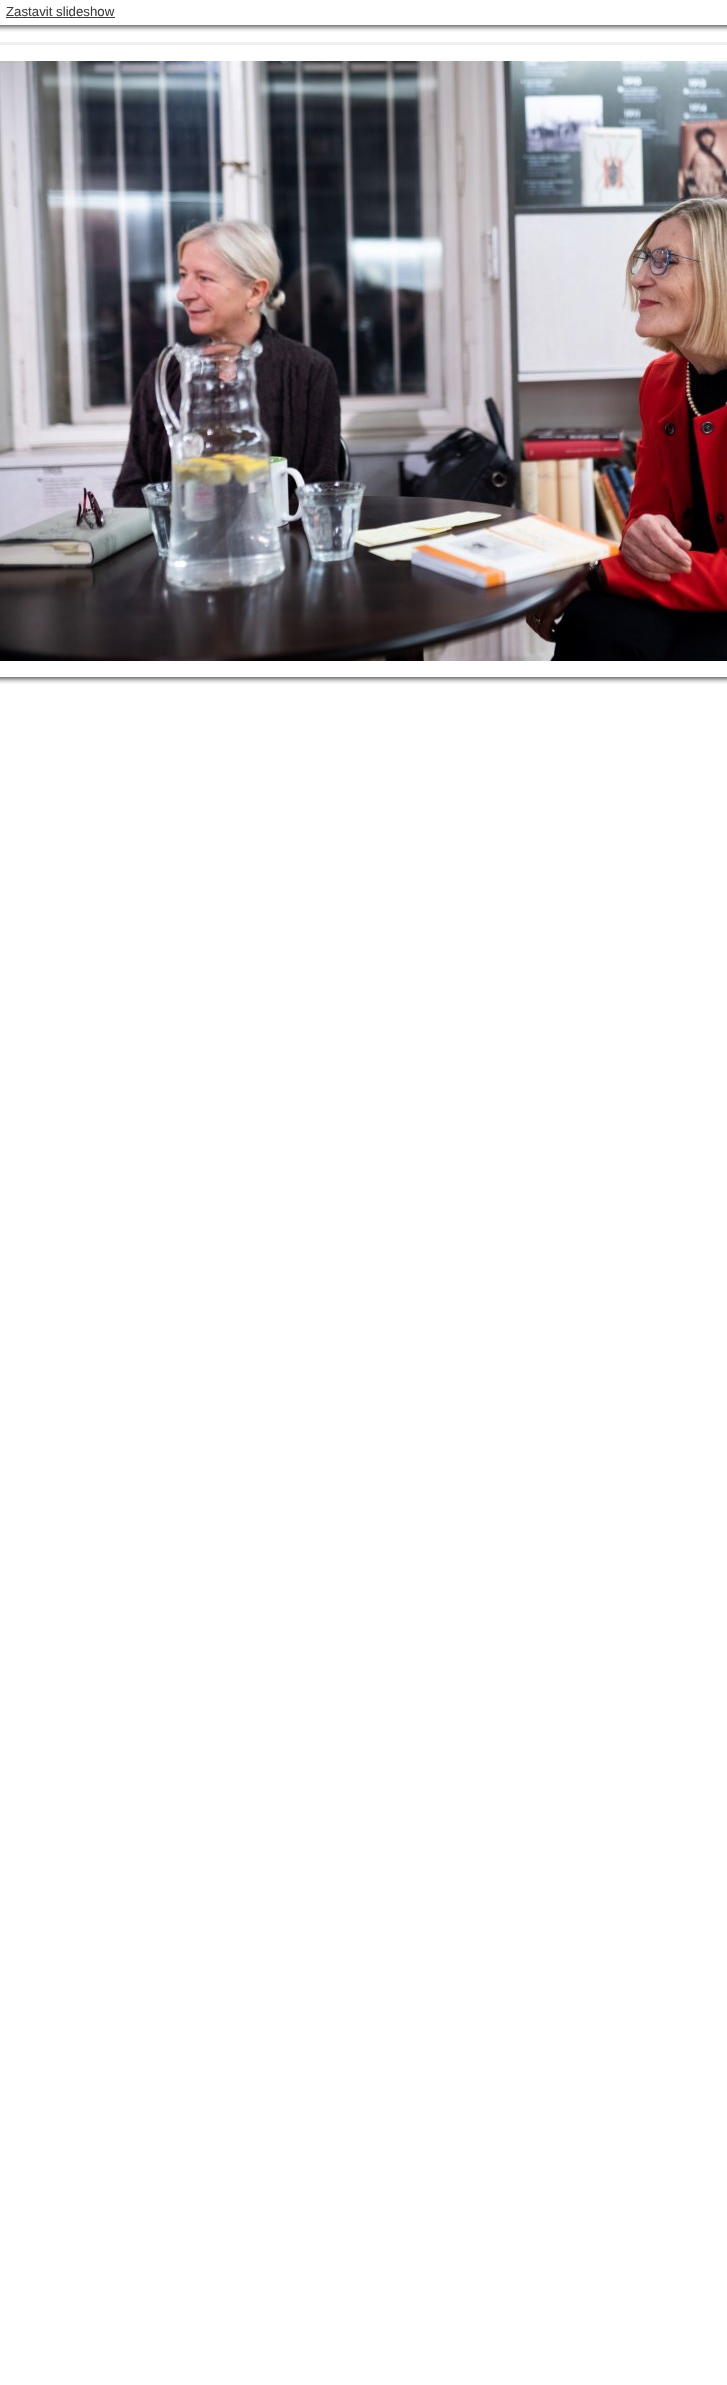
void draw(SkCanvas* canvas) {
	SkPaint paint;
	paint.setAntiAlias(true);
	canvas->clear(0xffffffff);
	canvas->drawImageRect(SkImages::DeferredFromEncodedData(SkData::MakeFromFileName("img1.png")), SkRect::MakeXYWH(0, 25, 727, 7), SkSamplingOptions());
	SkFont f1(fontMgr->matchFamilyStyle("Liberation Sans", SkFontStyle::Normal()), 13.25);
	f1.setSubpixel(true);
	paint.setColor(0xff404040);
	canvas->drawString("Zastavit slideshow", 6, 16, f1, paint);
	canvas->drawRect(SkRect::MakeXYWH(6, 17, 109, 1), paint);
	paint.setColor(0xffefefef);
	canvas->drawRect(SkRect::MakeXYWH(0, 42, 727, 3), paint);
	canvas->drawImageRect(SkImages::DeferredFromEncodedData(SkData::MakeFromFileName("img2.png")), SkRect::MakeXYWH(0, 61, 727, 600), SkSamplingOptions());
	canvas->drawImageRect(SkImages::DeferredFromEncodedData(SkData::MakeFromFileName("img1.png")), SkRect::MakeXYWH(0, 677, 727, 7), SkSamplingOptions());
}
